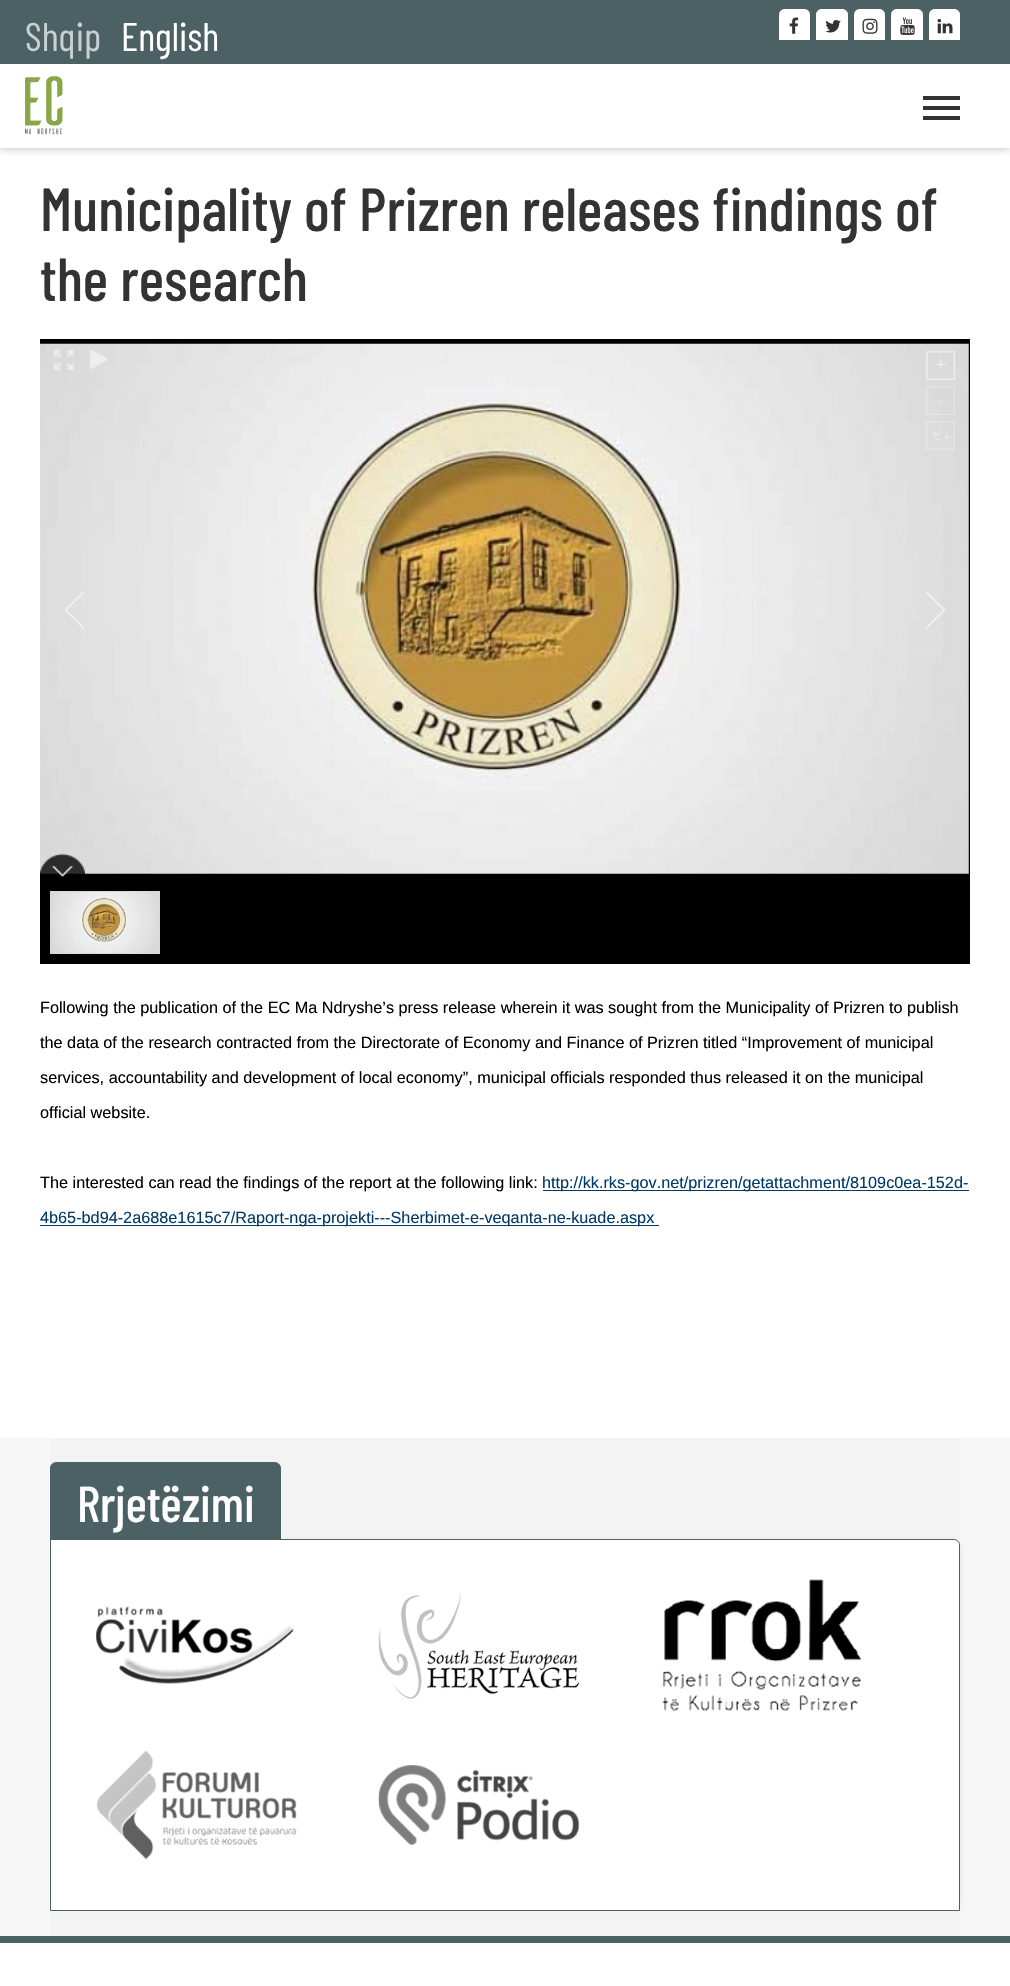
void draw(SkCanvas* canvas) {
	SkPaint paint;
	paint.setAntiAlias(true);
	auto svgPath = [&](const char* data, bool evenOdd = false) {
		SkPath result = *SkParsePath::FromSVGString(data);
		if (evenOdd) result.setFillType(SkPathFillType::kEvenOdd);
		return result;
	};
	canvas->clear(0xfff7f7f7);
	paint.setColor(0xffffffff);
	canvas->drawRect(SkRect::MakeXYWH(0, 148, 1010, 1290), paint);
	paint.setColor(0x47202124);
	paint.setMaskFilter(SkMaskFilter::MakeBlur(kNormal_SkBlurStyle, 4));
	canvas->drawRect(SkRect::MakeXYWH(0, 1, 1010, 148), paint);
	paint.setMaskFilter(nullptr);
	paint.setColor(0xff4c6164);
	canvas->drawRect(SkRect::MakeXYWH(0, 0, 1010, 64), paint);
	SkFont f1(fontMgr->matchFamilyStyle("Barlow Condensed", SkFontStyle::Normal()), 40);
	f1.setSubpixel(true);
	paint.setColor(0xffc9d0d1);
	canvas->drawString("Shqip", 25, 51, f1, paint);
	paint.setColor(0xffffffff);
	canvas->drawString("English", 121, 51, f1, paint);
	canvas->drawPath(svgPath("M785 9H804C807.5 9 810 11.5 810 15V40H779V15C779 11.5 781.5 9 785 9Z"), paint);
	canvas->drawImageRect(SkImages::DeferredFromEncodedData(SkData::MakeFromFileName("img1.png")), SkRect::MakeXYWH(789, 17, 10, 17), SkSamplingOptions());
	canvas->drawPath(svgPath("M822 9H842C845.5 9 848 11.5 848 15V40H816V15C816 11.5 818.5 9 822 9Z"), paint);
	canvas->drawImageRect(SkImages::DeferredFromEncodedData(SkData::MakeFromFileName("img2.png")), SkRect::MakeXYWH(825, 20, 16, 13), SkSamplingOptions());
	canvas->drawPath(svgPath("M860 9H879C882.5 9 885 11.5 885 15V40H854V15C854 11.5 856.5 9 860 9Z"), paint);
	canvas->drawImageRect(SkImages::DeferredFromEncodedData(SkData::MakeFromFileName("img3.png")), SkRect::MakeXYWH(862, 18, 16, 16), SkSamplingOptions());
	canvas->drawPath(svgPath("M897 9H917C920.5 9 923 11.5 923 15V40H891V15C891 11.5 893.5 9 897 9Z"), paint);
	canvas->drawImageRect(SkImages::DeferredFromEncodedData(SkData::MakeFromFileName("img4.png")), SkRect::MakeXYWH(900, 17, 15, 18), SkSamplingOptions());
	canvas->drawPath(svgPath("M935 9H954C957.5 9 960 11.5 960 15V40H929V15C929 11.5 931.5 9 935 9Z"), paint);
	canvas->drawImageRect(SkImages::DeferredFromEncodedData(SkData::MakeFromFileName("img5.png")), SkRect::MakeXYWH(937, 19, 16, 15), SkSamplingOptions());
	canvas->drawRect(SkRect::MakeXYWH(0, 64, 1010, 84), paint);
	canvas->drawImageRect(SkImages::DeferredFromEncodedData(SkData::MakeFromFileName("img6.png")), SkRect::MakeXYWH(25, 76, 38, 59), SkSamplingOptions());
	paint.setColor(0xff333333);
	canvas->drawRect(SkRect::MakeXYWH(923, 106, 37, 4), paint);
	canvas->drawRect(SkRect::MakeXYWH(923, 96, 37, 4), paint);
	canvas->drawRect(SkRect::MakeXYWH(923, 116, 37, 4), paint);
	SkFont f2(fontMgr->matchFamilyStyle("Barlow Condensed", SkFontStyle(500, SkFontStyle::kNormal_Width, SkFontStyle::kUpright_Slant)), 60.6);
	f2.setSubpixel(true);
	canvas->drawString("Municipality of Prizren releases findings of", 40, 231, f2, paint);
	canvas->drawString("the research", 40, 301, f2, paint);
	paint.setColor(0xff000000);
	canvas->drawRect(SkRect::MakeXYWH(40, 339, 930, 625), paint);
	canvas->drawImageRect(SkImages::DeferredFromEncodedData(SkData::MakeFromFileName("img7.png")), SkRect::MakeXYWH(40, 343, 929, 531), SkSamplingOptions());
	canvas->drawImageRect(SkImages::DeferredFromEncodedData(SkData::MakeFromFileName("img8.png")), SkRect::MakeXYWH(53, 350, 21, 20), SkSamplingOptions());
	canvas->drawImageRect(SkImages::DeferredFromEncodedData(SkData::MakeFromFileName("img9.png")), SkRect::MakeXYWH(90, 350, 18, 19), SkSamplingOptions());
	canvas->drawImageRect(SkImages::DeferredFromEncodedData(SkData::MakeFromFileName("img10.png")), SkRect::MakeXYWH(926, 351, 29, 29), SkSamplingOptions());
	canvas->drawImageRect(SkImages::DeferredFromEncodedData(SkData::MakeFromFileName("img11.png")), SkRect::MakeXYWH(926, 386, 29, 29), SkSamplingOptions());
	canvas->drawImageRect(SkImages::DeferredFromEncodedData(SkData::MakeFromFileName("img12.png")), SkRect::MakeXYWH(926, 421, 29, 29), SkSamplingOptions());
	canvas->drawImageRect(SkImages::DeferredFromEncodedData(SkData::MakeFromFileName("img13.png")), SkRect::MakeXYWH(65, 591, 19, 38), SkSamplingOptions());
	canvas->drawImageRect(SkImages::DeferredFromEncodedData(SkData::MakeFromFileName("img14.png")), SkRect::MakeXYWH(926, 591, 19, 38), SkSamplingOptions());
	canvas->drawImageRect(SkImages::DeferredFromEncodedData(SkData::MakeFromFileName("img15.png")), SkRect::MakeXYWH(40, 853, 45, 24), SkSamplingOptions());
	canvas->drawImageRect(SkImages::DeferredFromEncodedData(SkData::MakeFromFileName("img16.png")), SkRect::MakeXYWH(51, 892, 108, 61), SkSamplingOptions());
	paint.setStroke(true);
	paint.setStrokeWidth(1);
	paint.setColor(0xffd9d9d9);
	canvas->drawRect(SkRect::MakeXYWH(50.5, 891.5, 109, 62), paint);
	SkFont f3(fontMgr->matchFamilyStyle("Liberation Sans", SkFontStyle::Normal()), 16.25);
	f3.setSubpixel(true);
	paint.setStroke(false);
	paint.setColor(0xff000000);
	canvas->drawString("Following the publication of the EC Ma Ndryshe’s press release wherein it was sought from the Municipality of Prizren to publish", 40, 1013, f3, paint);
	canvas->drawString("the data of the research contracted from the Directorate of Economy and Finance of Prizren titled “Improvement of municipal", 40, 1048, f3, paint);
	canvas->drawString("services, accountability and development of local economy”, municipal officials responded thus released it on the municipal", 40, 1083, f3, paint);
	canvas->drawString("official website.", 40, 1118, f3, paint);
	canvas->drawString("The interested can read the findings of the report at the following link:", 40, 1188, f3, paint);
	paint.setColor(0xff003966);
	canvas->drawRect(SkRect::MakeXYWH(543, 1190, 426, 1), paint);
	canvas->drawString("http://kk.rks-gov.net/prizren/getattachment/8109c0ea-152d-", 542, 1188, f3, paint);
	canvas->drawRect(SkRect::MakeXYWH(40, 1225, 619, 1), paint);
	canvas->drawString("4b65-bd94-2a688e1615c7/Raport-nga-projekti---Sherbimet-e-veqanta-ne-kuade.aspx", 40, 1223, f3, paint);
	paint.setColor(0xfff3f3f3);
	canvas->drawRect(SkRect::MakeXYWH(50, 1438, 910, 498), paint);
	paint.setColor(0xffdddddd);
	paint.setMaskFilter(SkMaskFilter::MakeBlur(kNormal_SkBlurStyle, 3));
	canvas->drawRect(SkRect::MakeXYWH(63, 1545, 897, 360), paint);
	paint.setMaskFilter(nullptr);
	paint.setColor(0xffffffff);
	canvas->drawPath(svgPath("M50.5 1539.5H954C957 1539.5 959.5 1542 959.5 1545V1910.5H50.5Z"), paint);
	paint.setStroke(true);
	paint.setColor(0xff4c6164);
	canvas->drawPath(svgPath("M50.5 1539.5H954C957 1539.5 959.5 1542 959.5 1545V1910.5H50.5Z"), paint);
	paint.setStroke(false);
	canvas->drawPath(svgPath("M56 1463H275C278.5 1463 281 1465.5 281 1469V1540H50V1469C50 1465.5 52.5 1463 56 1463Z"), paint);
	canvas->drawPath(svgPath("M56 1462H275C278 1462 281 1465 281 1469V1540H50V1469C50 1465 53 1462 56 1462ZM56 1464H275C278 1464 280 1466 280 1469V1540H51V1469C51 1466 53 1464 56 1464Z", true), paint);
	SkFont f4(fontMgr->matchFamilyStyle("Barlow Condensed", SkFontStyle(500, SkFontStyle::kNormal_Width, SkFontStyle::kUpright_Slant)), 50.5);
	f4.setSubpixel(true);
	paint.setColor(0xffffffff);
	canvas->drawString("Rrjetëzimi", 77, 1522, f4, paint);
	canvas->drawImageRect(SkImages::DeferredFromEncodedData(SkData::MakeFromFileName("img17.png")), SkRect::MakeXYWH(96, 1606, 198, 78), SkSamplingOptions());
	canvas->drawImageRect(SkImages::DeferredFromEncodedData(SkData::MakeFromFileName("img18.png")), SkRect::MakeXYWH(378, 1592, 201, 107), SkSamplingOptions());
	canvas->drawImageRect(SkImages::DeferredFromEncodedData(SkData::MakeFromFileName("img19.png")), SkRect::MakeXYWH(662, 1579, 200, 132), SkSamplingOptions());
	canvas->drawImageRect(SkImages::DeferredFromEncodedData(SkData::MakeFromFileName("img20.png")), SkRect::MakeXYWH(96, 1750, 201, 110), SkSamplingOptions());
	canvas->drawImageRect(SkImages::DeferredFromEncodedData(SkData::MakeFromFileName("img21.png")), SkRect::MakeXYWH(378, 1765, 201, 80), SkSamplingOptions());
	canvas->drawRect(SkRect::MakeXYWH(0, 1943, 1010, 43), paint);
	paint.setColor(0xff4c6164);
	canvas->drawRect(SkRect::MakeXYWH(0, 1936, 1010, 7), paint);
}
